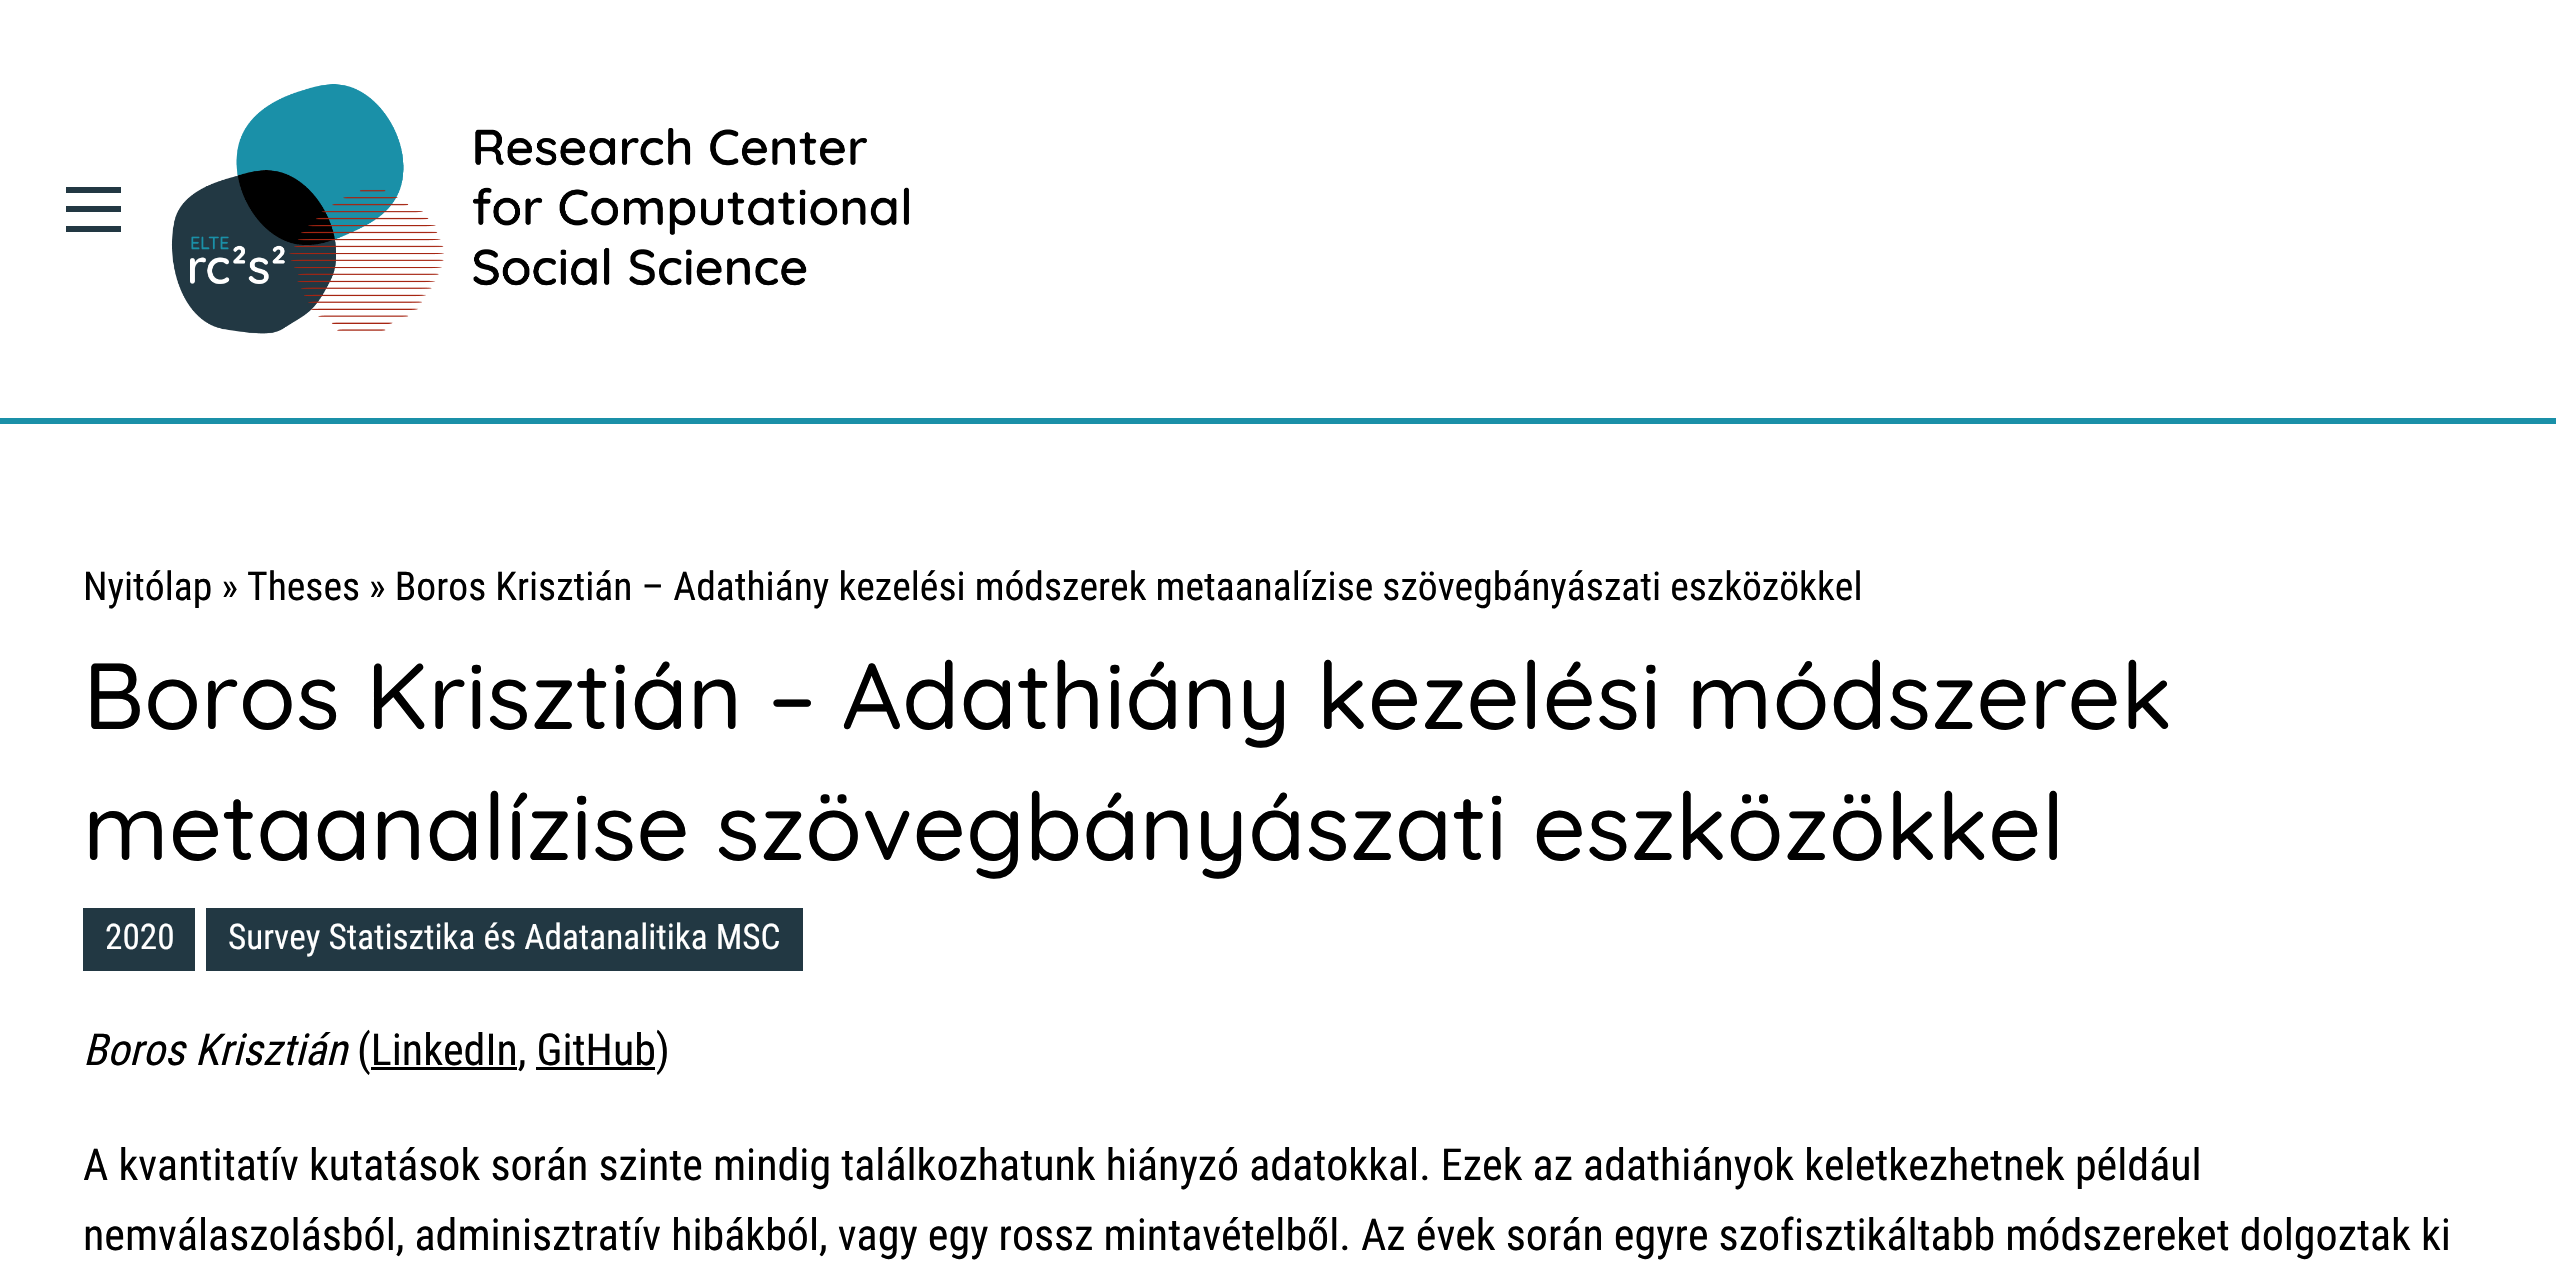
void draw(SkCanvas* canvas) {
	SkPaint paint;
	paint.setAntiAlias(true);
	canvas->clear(0xffffffff);
	paint.setColor(0xff1a90a8);
	canvas->drawRect(SkRect::MakeXYWH(0, 418, 2556, 6), paint);
	paint.setColor(0xff223843);
	canvas->drawRect(SkRect::MakeXYWH(66, 226, 55, 6), paint);
	canvas->drawRect(SkRect::MakeXYWH(66, 206, 55, 6), paint);
	canvas->drawRect(SkRect::MakeXYWH(66, 187, 55, 6), paint);
	canvas->drawImageRect(SkImages::DeferredFromEncodedData(SkData::MakeFromFileName("img1.png")), SkRect::MakeXYWH(171, 84, 738, 250), SkSamplingOptions());
	SkFont f1(fontMgr->matchFamilyStyle("Roboto Condensed", SkFontStyle::Normal()), 39.6);
	f1.setSubpixel(true);
	paint.setColor(0xff000000);
	canvas->drawString("Nyitólap » Theses » Boros Krisztián – Adathiány kezelési módszerek metaanalízise szövegbányászati eszközökkel", 83, 600, f1, paint);
	SkFont f2(fontMgr->matchFamilyStyle("Quicksand", SkFontStyle(500, SkFontStyle::kNormal_Width, SkFontStyle::kUpright_Slant)), 93.5);
	f2.setSubpixel(true);
	canvas->drawString("Boros Krisztián – Adathiány kezelési módszerek", 83, 729, f2, paint);
	canvas->drawString("metaanalízise szövegbányászati eszközökkel", 83, 860, f2, paint);
	paint.setColor(0xff223843);
	canvas->drawRect(SkRect::MakeXYWH(83, 908, 112, 63), paint);
	SkFont f3(fontMgr->matchFamilyStyle("Roboto Condensed", SkFontStyle::Normal()), 35.25);
	f3.setSubpixel(true);
	paint.setColor(0xffffffff);
	canvas->drawString("2020", 105, 949, f3, paint);
	paint.setColor(0xff223843);
	canvas->drawRect(SkRect::MakeXYWH(206, 908, 597, 63), paint);
	paint.setColor(0xffffffff);
	canvas->drawString("Survey Statisztika és Adatanalitika MSC", 228, 949, f3, paint);
	SkFont f4(fontMgr->matchFamilyStyle("Roboto Condensed", SkFontStyle::Italic()), 44);
	f4.setSubpixel(true);
	paint.setColor(0xff000000);
	canvas->drawString("Boros Krisztián", 83, 1065, f4, paint);
	SkFont f5(fontMgr->matchFamilyStyle("Roboto Condensed", SkFontStyle::Normal()), 44);
	f5.setSubpixel(true);
	canvas->drawString("(LinkedIn, GitHub)", 357, 1065, f5, paint);
	canvas->drawRect(SkRect::MakeXYWH(371, 1067, 146, 3), paint);
	canvas->drawRect(SkRect::MakeXYWH(536, 1067, 119, 3), paint);
	canvas->drawString("A kvantitatív kutatások során szinte mindig találkozhatunk hiányzó adatokkal. Ezek az adathiányok keletkezhetnek például", 83, 1180, f5, paint);
	canvas->drawString("nemválaszolásból, adminisztratív hibákból, vagy egy rossz mintavételből. Az évek során egyre szofisztikáltabb módszereket dolgoztak ki", 83, 1250, f5, paint);
}
